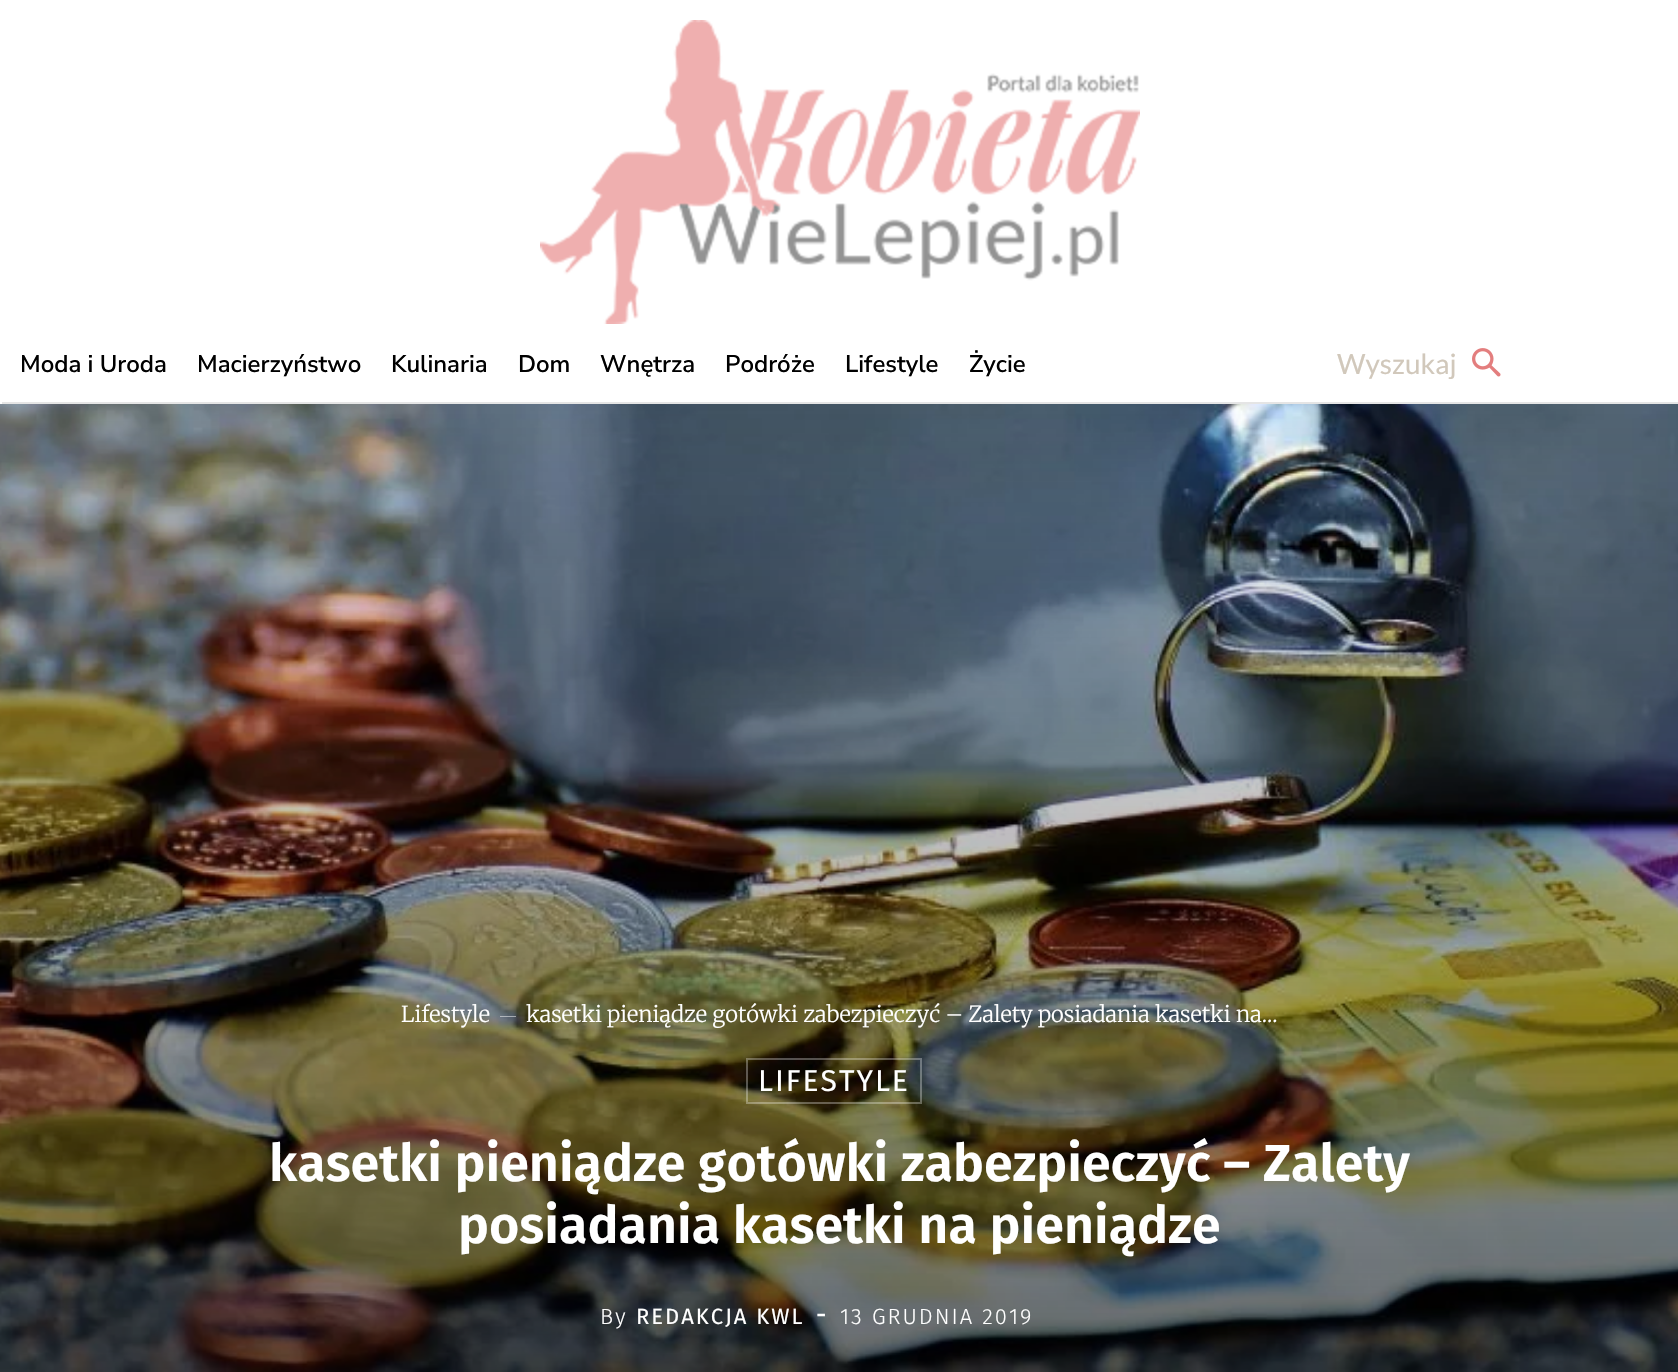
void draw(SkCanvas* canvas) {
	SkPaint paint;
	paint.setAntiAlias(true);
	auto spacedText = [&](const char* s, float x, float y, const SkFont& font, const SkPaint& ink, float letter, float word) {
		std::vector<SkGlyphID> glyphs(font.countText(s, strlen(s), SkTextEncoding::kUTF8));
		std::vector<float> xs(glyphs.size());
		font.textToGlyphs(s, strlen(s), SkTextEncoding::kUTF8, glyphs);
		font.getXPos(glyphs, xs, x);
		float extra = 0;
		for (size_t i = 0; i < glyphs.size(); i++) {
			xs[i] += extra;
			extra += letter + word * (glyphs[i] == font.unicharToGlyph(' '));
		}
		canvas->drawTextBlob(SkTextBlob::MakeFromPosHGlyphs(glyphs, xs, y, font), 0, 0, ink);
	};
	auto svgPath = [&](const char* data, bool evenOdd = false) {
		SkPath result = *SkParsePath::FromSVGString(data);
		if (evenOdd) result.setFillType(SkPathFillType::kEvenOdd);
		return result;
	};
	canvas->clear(0xffffffff);
	canvas->drawImageRect(SkImages::DeferredFromEncodedData(SkData::MakeFromFileName("img1.png")), SkRect::MakeXYWH(540, 20, 600, 304), SkSamplingOptions());
	SkFont f1(fontMgr->matchFamilyStyle("Nunito Sans", SkFontStyle(600, SkFontStyle::kNormal_Width, SkFontStyle::kUpright_Slant)), 24);
	f1.setSubpixel(true);
	paint.setColor(0xff000000);
	canvas->drawString("Moda i Uroda", 20, 372, f1, paint);
	canvas->drawString("Macierzyństwo", 197, 372, f1, paint);
	canvas->drawString("Kulinaria", 391, 372, f1, paint);
	canvas->drawString("Dom", 518, 372, f1, paint);
	canvas->drawString("Wnętrza", 600, 372, f1, paint);
	canvas->drawString("Podróże", 725, 372, f1, paint);
	canvas->drawString("Lifestyle", 845, 372, f1, paint);
	canvas->drawString("Życie", 969, 372, f1, paint);
	SkFont f2(fontMgr->matchFamilyStyle("Lato", SkFontStyle::Normal()), 28);
	f2.setSubpixel(true);
	paint.setColor(0xffd1c8bb);
	canvas->drawString("Wyszukaj", 1337, 374, f2, paint);
	canvas->drawImageRect(SkImages::DeferredFromEncodedData(SkData::MakeFromFileName("img2.png")), SkRect::MakeXYWH(1472, 348, 29, 29), SkSamplingOptions());
	paint.setColor(0xffe5e5e5);
	canvas->drawRect(SkRect::MakeXYWH(2, 402, 1676, 2), paint);
	canvas->drawImageRect(SkImages::DeferredFromEncodedData(SkData::MakeFromFileName("img3.png")), SkRect::MakeXYWH(0, 404, 1678, 968), SkSamplingOptions());
	SkFont f3(fontMgr->matchFamilyStyle("Merriweather", SkFontStyle(300, SkFontStyle::kNormal_Width, SkFontStyle::kUpright_Slant)), 22);
	f3.setSubpixel(true);
	paint.setColor(0xffffffff);
	canvas->drawString("Lifestyle", 401, 1022, f3, paint);
	canvas->drawPath(svgPath("M500 1016H516V1016.5H500Z"), paint);
	canvas->drawString("kasetki pieniądze gotówki zabezpieczyć – Zalety posiadania kasetki na...", 526, 1022, f3, paint);
	paint.setStroke(true);
	paint.setStrokeWidth(2);
	paint.setColor(0x4dffffff);
	canvas->drawRect(SkRect::MakeXYWH(747, 1059, 174, 44), paint);
	SkFont f4(fontMgr->matchFamilyStyle("Fira Sans", SkFontStyle::Normal()), 30);
	f4.setSubpixel(true);
	paint.setStroke(false);
	paint.setColor(0xffffffff);
	spacedText("LIFESTYLE", 758, 1091, f4, paint, 2, 0);
	SkFont f5(fontMgr->matchFamilyStyle("Fira Sans", SkFontStyle(600, SkFontStyle::kNormal_Width, SkFontStyle::kUpright_Slant)), 52);
	f5.setSubpixel(true);
	canvas->drawString("kasetki pieniądze gotówki zabezpieczyć – Zalety", 269, 1181, f5, paint);
	canvas->drawString("posiadania kasetki na pieniądze", 458, 1243, f5, paint);
	SkFont f6(fontMgr->matchFamilyStyle("Fira Sans", SkFontStyle(300, SkFontStyle::kNormal_Width, SkFontStyle::kUpright_Slant)), 22);
	f6.setSubpixel(true);
	spacedText("By", 600, 1324, f6, paint, 2, 0);
	SkFont f7(fontMgr->matchFamilyStyle("Fira Sans", SkFontStyle::Normal()), 22);
	f7.setSubpixel(true);
	spacedText("REDAKCJA KWL", 636, 1324, f7, paint, 2, 0);
	SkFont f8(fontMgr->matchFamilyStyle("Lato", SkFontStyle::Normal()), 30);
	f8.setSubpixel(true);
	canvas->drawString("-", 816, 1324, f8, paint);
	spacedText("13 GRUDNIA 2019", 840, 1324, f6, paint, 2, 0);
}
